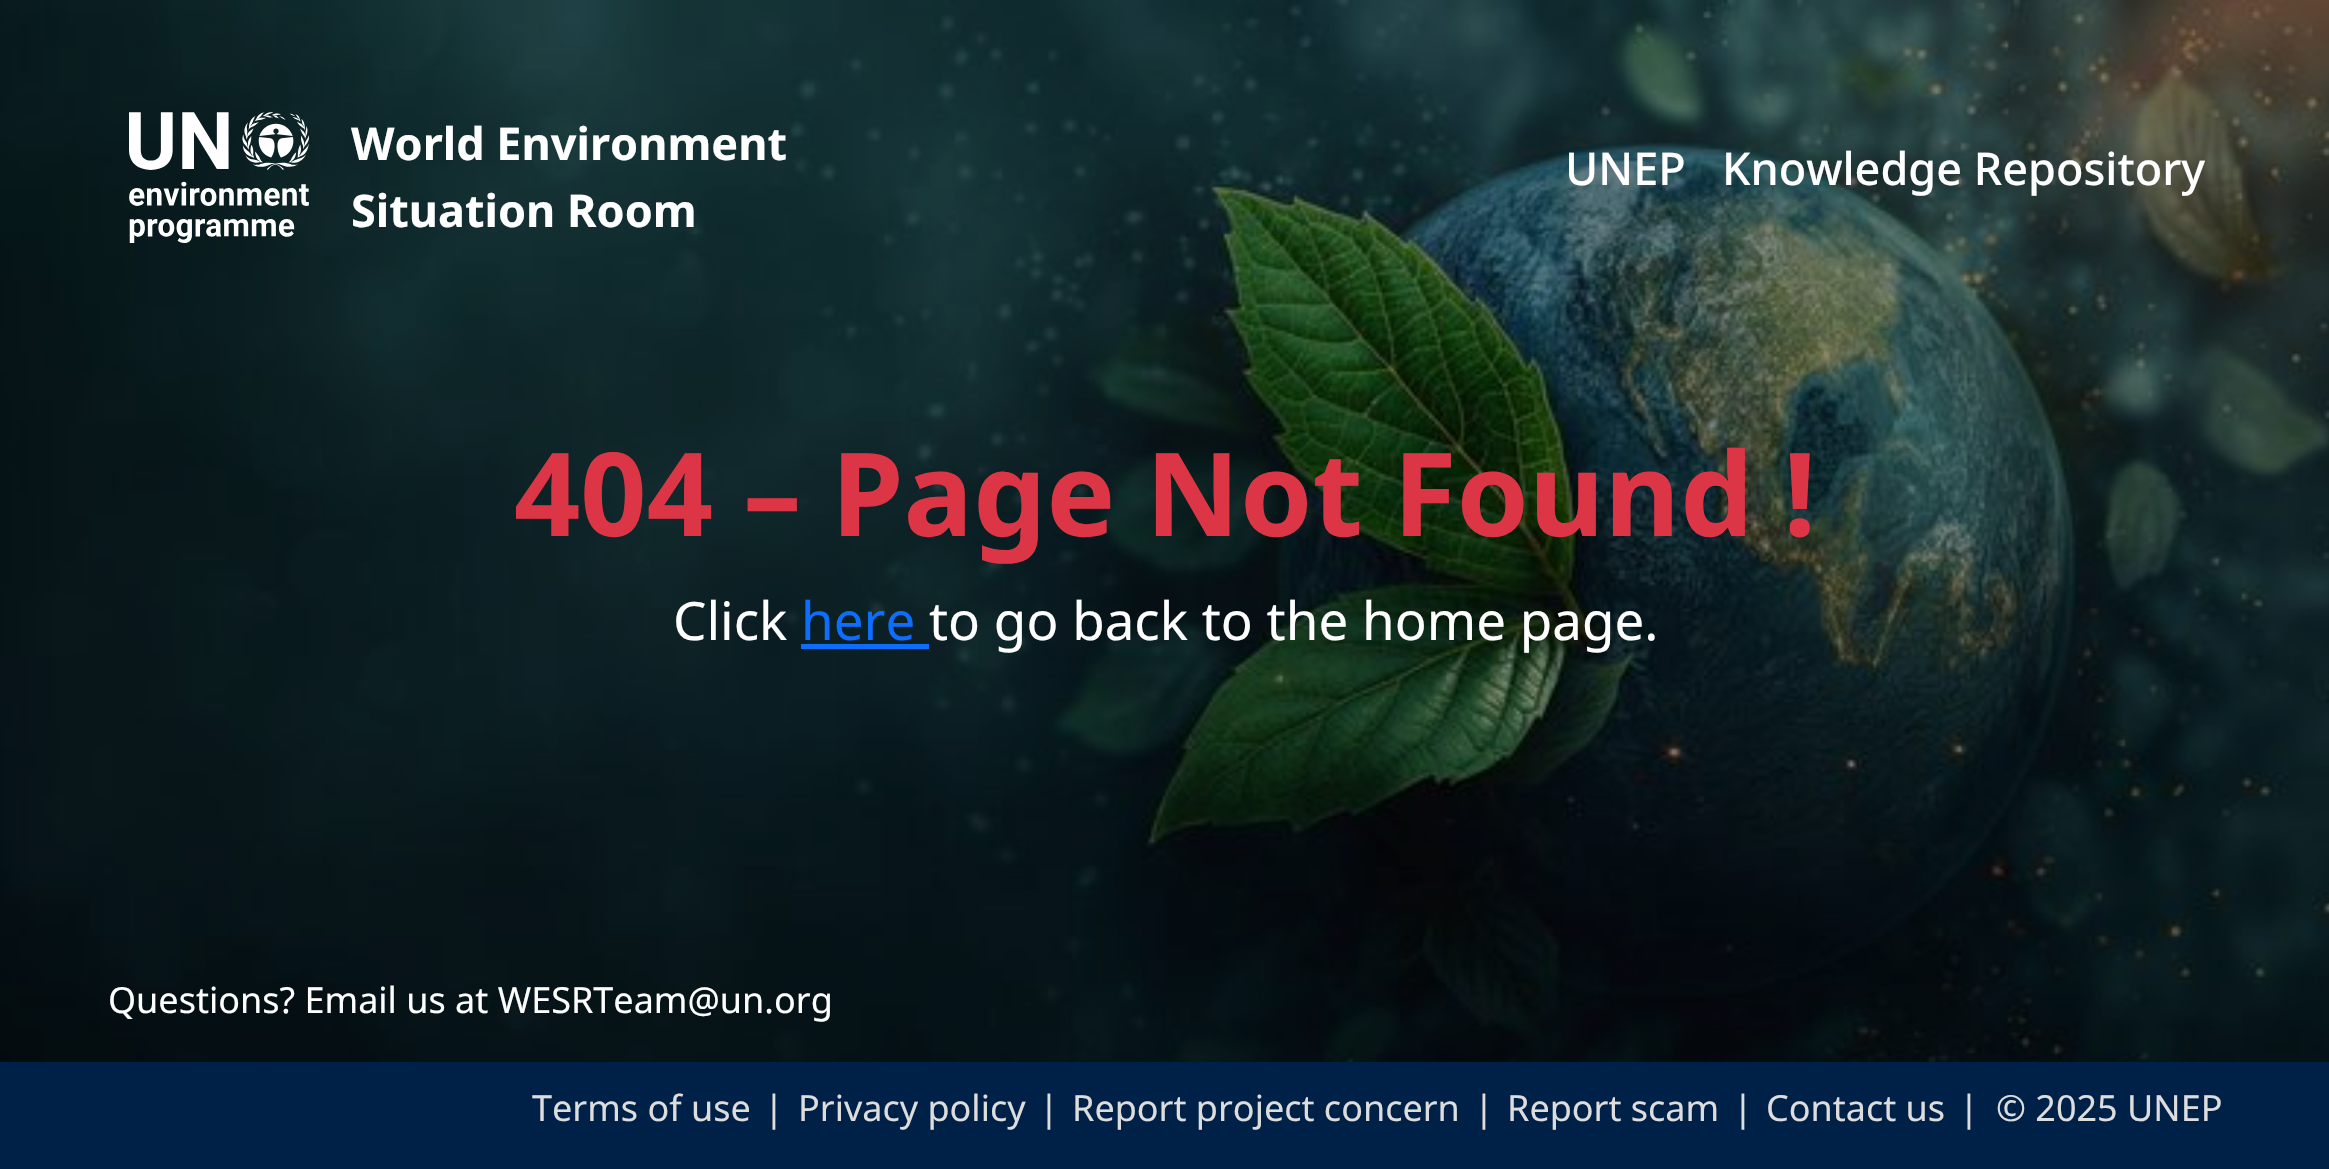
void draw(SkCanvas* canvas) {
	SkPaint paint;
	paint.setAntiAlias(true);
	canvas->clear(0xffffffff);
	canvas->drawImageRect(SkImages::DeferredFromEncodedData(SkData::MakeFromFileName("img1.png")), SkRect::MakeXYWH(0, 0, 2329, 1062), SkSamplingOptions());
	canvas->drawImageRect(SkImages::DeferredFromEncodedData(SkData::MakeFromFileName("img2.png")), SkRect::MakeXYWH(129, 112, 180, 131), SkSamplingOptions());
	SkFont f1(fontMgr->matchFamilyStyle("Noto Sans", SkFontStyle::Bold()), 45);
	f1.setSubpixel(true);
	paint.setColor(0xffffffff);
	canvas->drawString("World Environment", 351, 160, f1, paint);
	canvas->drawString("Situation Room", 351, 227, f1, paint);
	SkFont f2(fontMgr->matchFamilyStyle("Noto Sans", SkFontStyle(500, SkFontStyle::kNormal_Width, SkFontStyle::kUpright_Slant)), 45);
	f2.setSubpixel(true);
	canvas->drawString("UNEP", 1565, 185, f2, paint);
	canvas->drawString("Knowledge Repository", 1722, 185, f2, paint);
	SkFont f3(fontMgr->matchFamilyStyle("Noto Sans", SkFontStyle::Bold()), 116);
	f3.setSubpixel(true);
	paint.setColor(0xffdc3545);
	canvas->drawString("404 – Page Not Found !", 514, 536, f3, paint);
	SkFont f4(fontMgr->matchFamilyStyle("Noto Sans", SkFontStyle::Normal()), 52.9);
	f4.setSubpixel(true);
	paint.setColor(0xffffffff);
	canvas->drawString("Click", 673, 640, f4, paint);
	paint.setColor(0xff0d6efd);
	canvas->drawString("here", 801, 640, f4, paint);
	canvas->drawRect(SkRect::MakeXYWH(801, 644, 128, 5), paint);
	paint.setColor(0xffffffff);
	canvas->drawString("to go back to the home page.", 929, 640, f4, paint);
	SkFont f5(fontMgr->matchFamilyStyle("Noto Sans", SkFontStyle::Normal()), 36);
	f5.setSubpixel(true);
	canvas->drawString("Questions? Email us at WESRTeam@un.org", 108, 1013, f5, paint);
	paint.setColor(0xff002147);
	canvas->drawRect(SkRect::MakeXYWH(0, 1062, 2329, 107), paint);
	paint.setColor(0xffdddddd);
	canvas->drawString("Terms of use", 532, 1121, f5, paint);
	canvas->drawString("|", 764, 1121, f5, paint);
	canvas->drawString("Privacy policy", 798, 1121, f5, paint);
	canvas->drawString("|", 1039, 1121, f5, paint);
	canvas->drawString("Report project concern", 1072, 1121, f5, paint);
	canvas->drawString("|", 1474, 1121, f5, paint);
	canvas->drawString("Report scam", 1507, 1121, f5, paint);
	canvas->drawString("|", 1733, 1121, f5, paint);
	canvas->drawString("Contact us", 1766, 1121, f5, paint);
	canvas->drawString("|", 1959, 1121, f5, paint);
	canvas->drawString("© 2025 UNEP", 1996, 1121, f5, paint);
}
